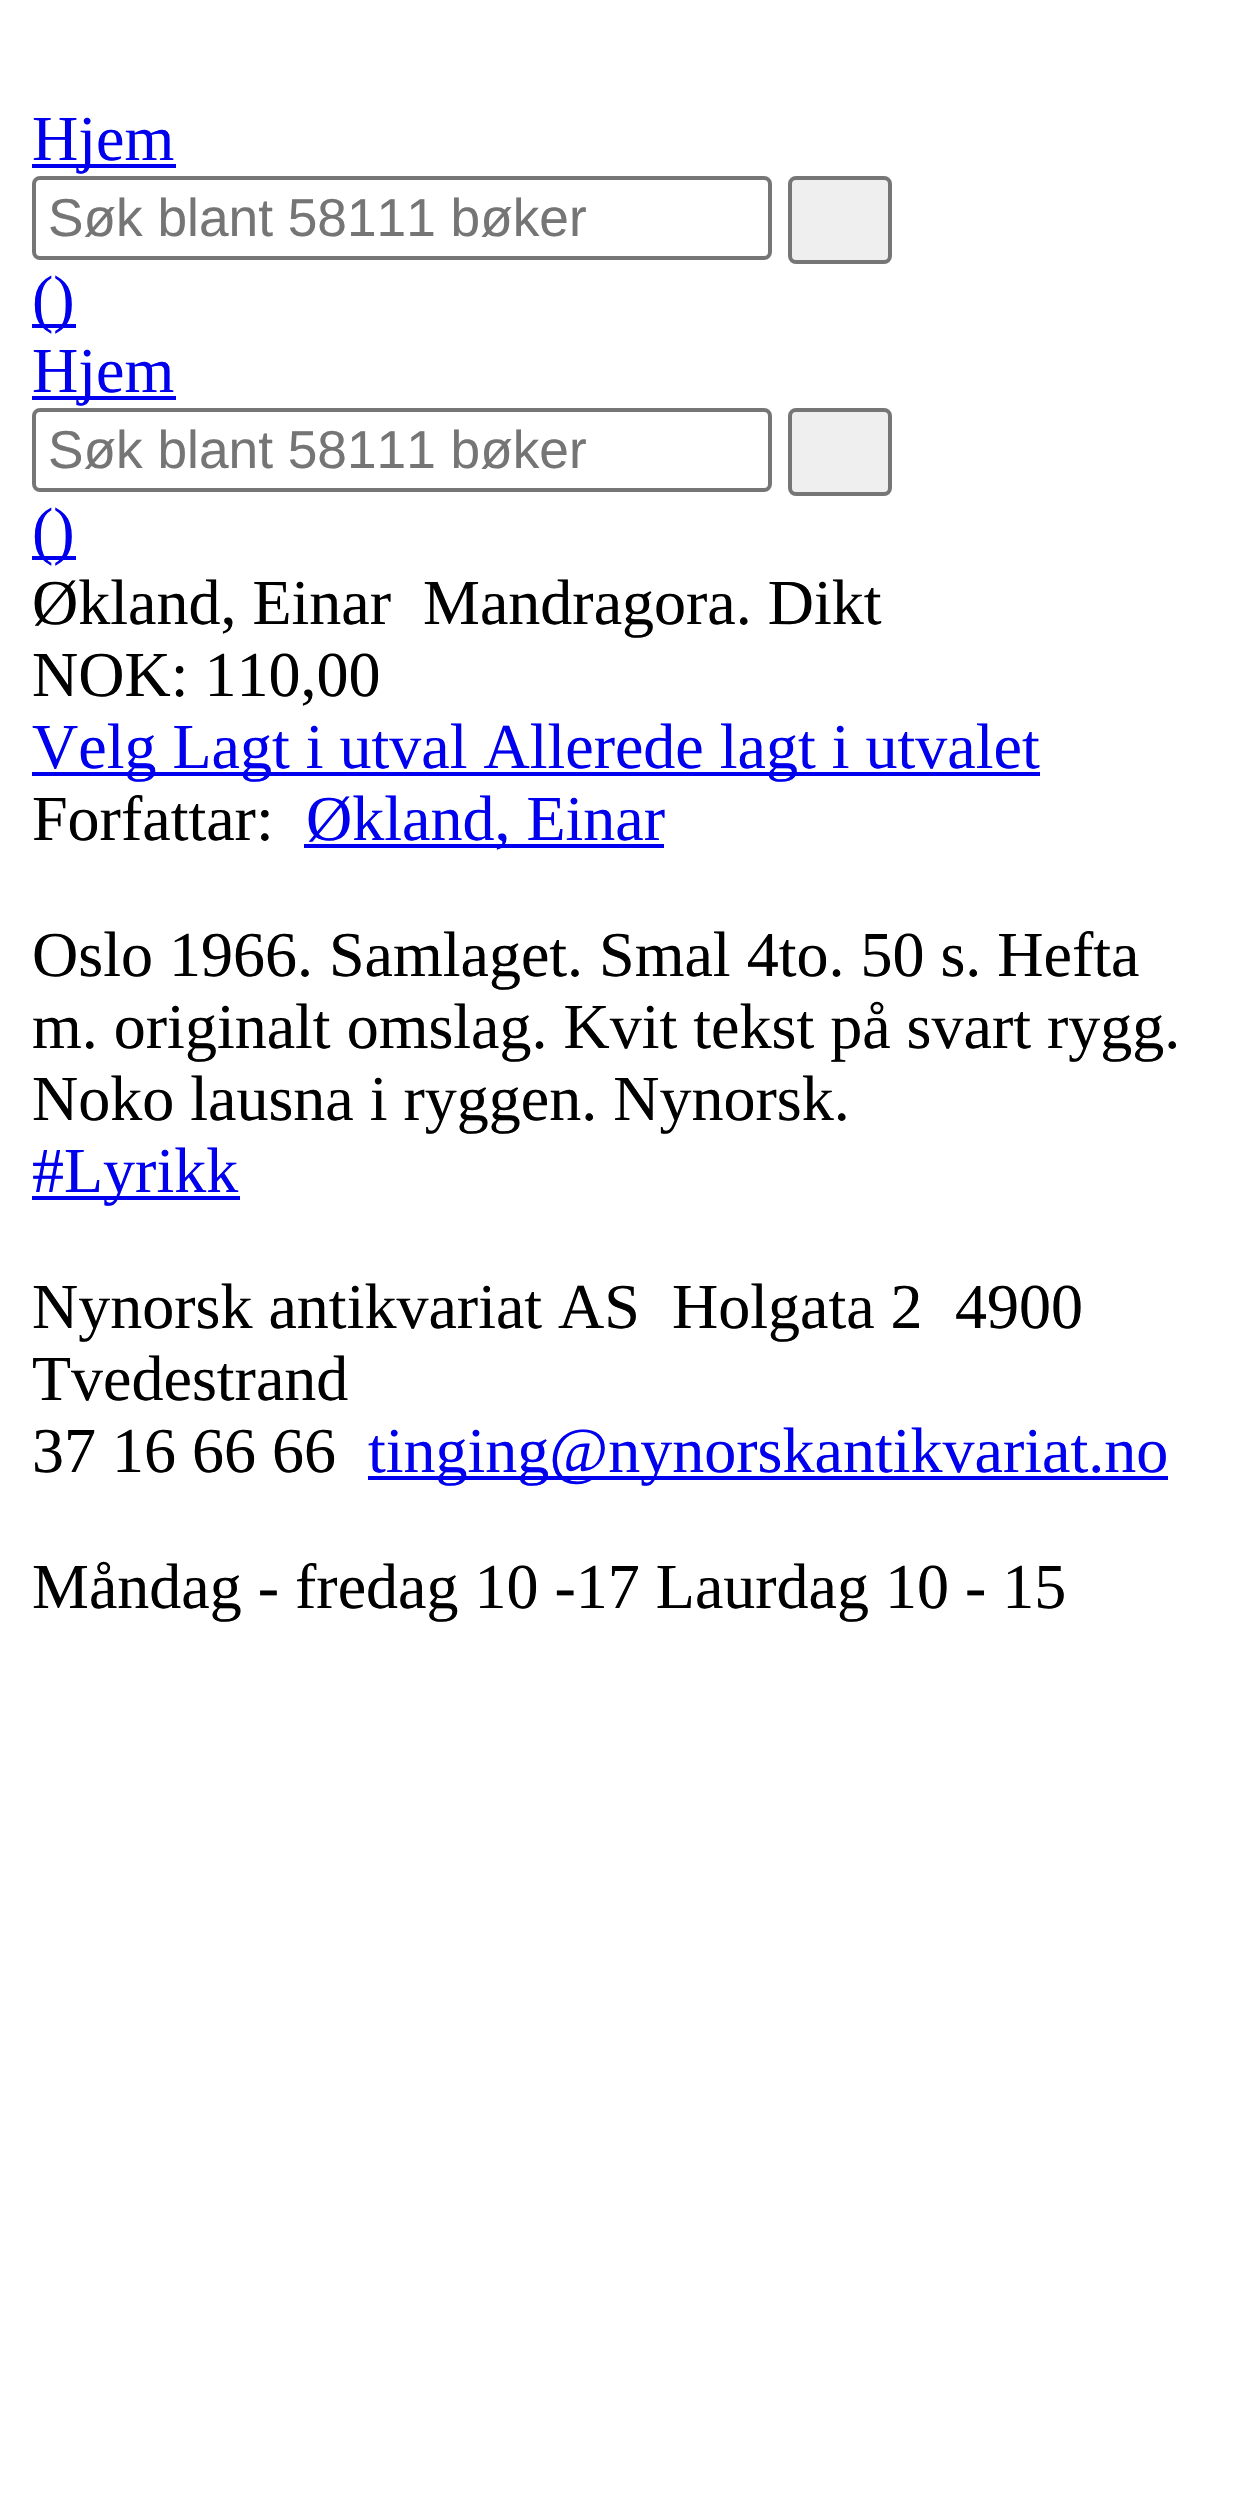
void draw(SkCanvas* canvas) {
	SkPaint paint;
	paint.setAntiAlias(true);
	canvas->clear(0xffffffff);
	paint.setColor(0xff0000ee);
	canvas->drawRect(SkRect::MakeXYWH(32, 164, 144, 4), paint);
	SkFont f1(fontMgr->matchFamilyStyle("Liberation Serif", SkFontStyle::Normal()), 64);
	f1.setSubpixel(true);
	canvas->drawString("Hjem", 32, 160, f1, paint);
	paint.setStroke(true);
	paint.setStrokeWidth(4);
	paint.setColor(0xff767676);
	canvas->drawRoundRect(SkRect::MakeXYWH(34, 178, 736, 80), 6, 6, paint);
	SkFont f2(fontMgr->matchFamilyStyle("Liberation Sans", SkFontStyle::Normal()), 53.25);
	f2.setSubpixel(true);
	paint.setStroke(false);
	paint.setColor(0xff757575);
	canvas->drawString("Søk blant 58111 bøker", 48, 236, f2, paint);
	paint.setColor(0xffefefef);
	canvas->drawRoundRect(SkRect::MakeXYWH(790, 178, 100, 84), 6, 6, paint);
	paint.setStroke(true);
	paint.setColor(0xff767676);
	canvas->drawRoundRect(SkRect::MakeXYWH(790, 178, 100, 84), 6, 6, paint);
	paint.setStroke(false);
	paint.setColor(0xff0000ee);
	canvas->drawRect(SkRect::MakeXYWH(32, 324, 44, 4), paint);
	canvas->drawString("()", 32, 320, f1, paint);
	canvas->drawRect(SkRect::MakeXYWH(32, 396, 144, 4), paint);
	canvas->drawString("Hjem", 32, 392, f1, paint);
	paint.setStroke(true);
	paint.setColor(0xff767676);
	canvas->drawRoundRect(SkRect::MakeXYWH(34, 410, 736, 80), 6, 6, paint);
	paint.setStroke(false);
	paint.setColor(0xff757575);
	canvas->drawString("Søk blant 58111 bøker", 48, 468, f2, paint);
	paint.setColor(0xffefefef);
	canvas->drawRoundRect(SkRect::MakeXYWH(790, 410, 100, 84), 6, 6, paint);
	paint.setStroke(true);
	paint.setColor(0xff767676);
	canvas->drawRoundRect(SkRect::MakeXYWH(790, 410, 100, 84), 6, 6, paint);
	paint.setStroke(false);
	paint.setColor(0xff0000ee);
	canvas->drawRect(SkRect::MakeXYWH(32, 556, 44, 4), paint);
	canvas->drawString("()", 32, 552, f1, paint);
	paint.setColor(0xff000000);
	canvas->drawString("Økland, Einar", 32, 624, f1, paint);
	canvas->drawString("Mandragora. Dikt", 423, 624, f1, paint);
	canvas->drawString("NOK: 110,00", 32, 696, f1, paint);
	paint.setColor(0xff0000ee);
	canvas->drawRect(SkRect::MakeXYWH(32, 772, 1008, 4), paint);
	canvas->drawString("Velg Lagt i utval Allerede lagt i utvalet", 32, 768, f1, paint);
	paint.setColor(0xff000000);
	canvas->drawString("Forfattar:", 32, 840, f1, paint);
	paint.setColor(0xff0000ee);
	canvas->drawRect(SkRect::MakeXYWH(304, 844, 360, 4), paint);
	canvas->drawString("Økland, Einar", 306, 840, f1, paint);
	paint.setColor(0xff000000);
	canvas->drawString("Oslo 1966. Samlaget. Smal 4to. 50 s. Hefta", 32, 976, f1, paint);
	canvas->drawString("m. originalt omslag. Kvit tekst på svart rygg.", 32, 1048, f1, paint);
	canvas->drawString("Noko lausna i ryggen. Nynorsk.", 32, 1120, f1, paint);
	paint.setColor(0xff0000ee);
	canvas->drawRect(SkRect::MakeXYWH(32, 1196, 208, 4), paint);
	canvas->drawString("#Lyrikk", 32, 1192, f1, paint);
	paint.setColor(0xff000000);
	canvas->drawString("Nynorsk antikvariat AS", 32, 1328, f1, paint);
	canvas->drawString("Holgata 2", 672, 1328, f1, paint);
	canvas->drawString("4900", 955, 1328, f1, paint);
	canvas->drawString("Tvedestrand", 32, 1400, f1, paint);
	canvas->drawString("37 16 66 66", 32, 1472, f1, paint);
	paint.setColor(0xff0000ee);
	canvas->drawRect(SkRect::MakeXYWH(368, 1476, 800, 4), paint);
	canvas->drawString("tinging@nynorskantikvariat.no", 368, 1472, f1, paint);
	paint.setColor(0xff000000);
	canvas->drawString("Måndag - fredag 10 -17 Laurdag 10 - 15", 32, 1608, f1, paint);
}
